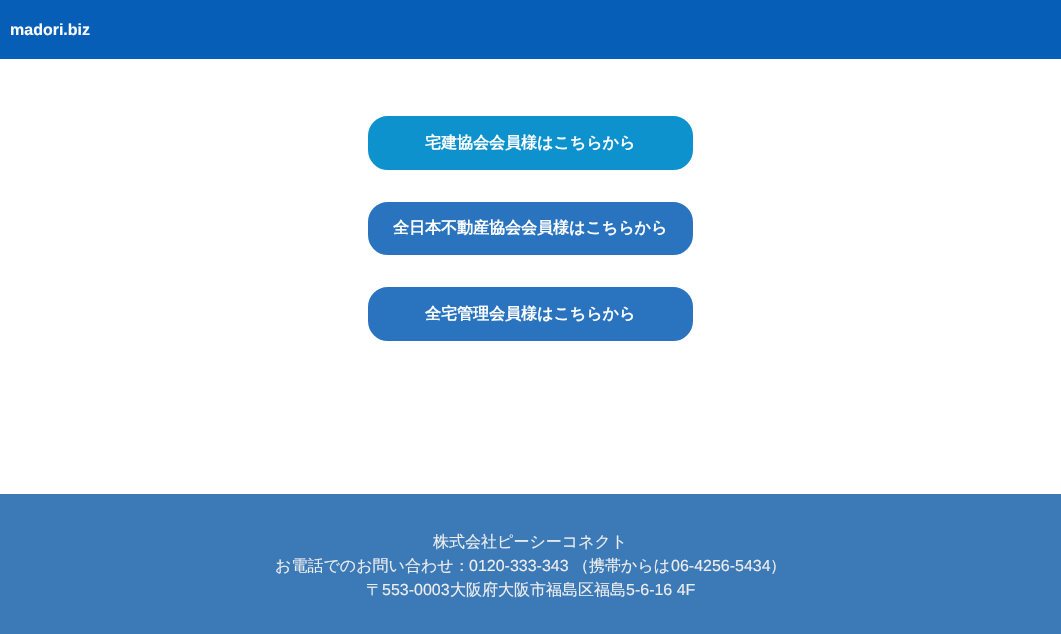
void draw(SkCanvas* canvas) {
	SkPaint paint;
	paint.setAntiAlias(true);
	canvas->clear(0xffffffff);
	paint.setColor(0xff065eb7);
	canvas->drawRect(SkRect::MakeXYWH(0, 0, 1061, 59), paint);
	SkFont f1(fontMgr->matchFamilyStyle("Liberation Sans", SkFontStyle::Bold()), 16);
	f1.setSubpixel(true);
	paint.setColor(0xffffffff);
	canvas->drawString("madori.biz", 10, 35, f1, paint);
	paint.setColor(0xff0e92ce);
	canvas->drawRoundRect(SkRect::MakeXYWH(369, 117, 323, 52), 19, 19, paint);
	paint.setStroke(true);
	paint.setStrokeWidth(2);
	canvas->drawRoundRect(SkRect::MakeXYWH(369, 117, 323, 52), 19, 19, paint);
	SkFont f2(fontMgr->matchFamilyStyle("WenQuanYi Zen Hei", SkFontStyle::Bold()), 16);
	f2.setSubpixel(true);
	paint.setStroke(false);
	paint.setColor(0xffffffff);
	canvas->drawString("宅建協会会員様はこちらから", 425, 148, f2, paint);
	paint.setColor(0xff2a74bf);
	canvas->drawRoundRect(SkRect::MakeXYWH(369, 203, 323, 51), 19, 19, paint);
	paint.setStroke(true);
	canvas->drawRoundRect(SkRect::MakeXYWH(369, 203, 323, 51), 19, 19, paint);
	paint.setStroke(false);
	paint.setColor(0xffffffff);
	canvas->drawString("全日本不動産協会会員様はこちらから", 393, 233, f2, paint);
	paint.setColor(0xff2a74bf);
	canvas->drawRoundRect(SkRect::MakeXYWH(369, 288, 323, 52), 19, 19, paint);
	paint.setStroke(true);
	canvas->drawRoundRect(SkRect::MakeXYWH(369, 288, 323, 52), 19, 19, paint);
	paint.setStroke(false);
	paint.setColor(0xffffffff);
	canvas->drawString("全宅管理会員様はこちらから", 425, 319, f2, paint);
	paint.setColor(0xff3b79b7);
	canvas->drawRect(SkRect::MakeXYWH(0, 494, 1061, 140), paint);
	SkFont f3(fontMgr->matchFamilyStyle("WenQuanYi Zen Hei", SkFontStyle(500, SkFontStyle::kNormal_Width, SkFontStyle::kUpright_Slant)), 16);
	f3.setSubpixel(true);
	paint.setColor(0xffeeeeee);
	canvas->drawString("株式会社ピーシーコネクト", 433, 547, f3, paint);
	canvas->drawString("お電話でのお問い合わせ：", 275, 571, f3, paint);
	SkFont f4(fontMgr->matchFamilyStyle("Liberation Sans", SkFontStyle::Normal()), 16);
	f4.setSubpixel(true);
	canvas->drawString("0120-333-343", 469, 571, f4, paint);
	canvas->drawString("（携帯からは", 573, 571, f3, paint);
	canvas->drawString("06-4256-5434", 671, 571, f4, paint);
	canvas->drawString("）", 770, 571, f3, paint);
	canvas->drawString("〒", 366, 595, f3, paint);
	canvas->drawString("553-0003", 382, 595, f4, paint);
	canvas->drawString("大阪府大阪市福島区福島", 450, 595, f3, paint);
	canvas->drawString("5-6-16 4F", 626, 595, f4, paint);
}
